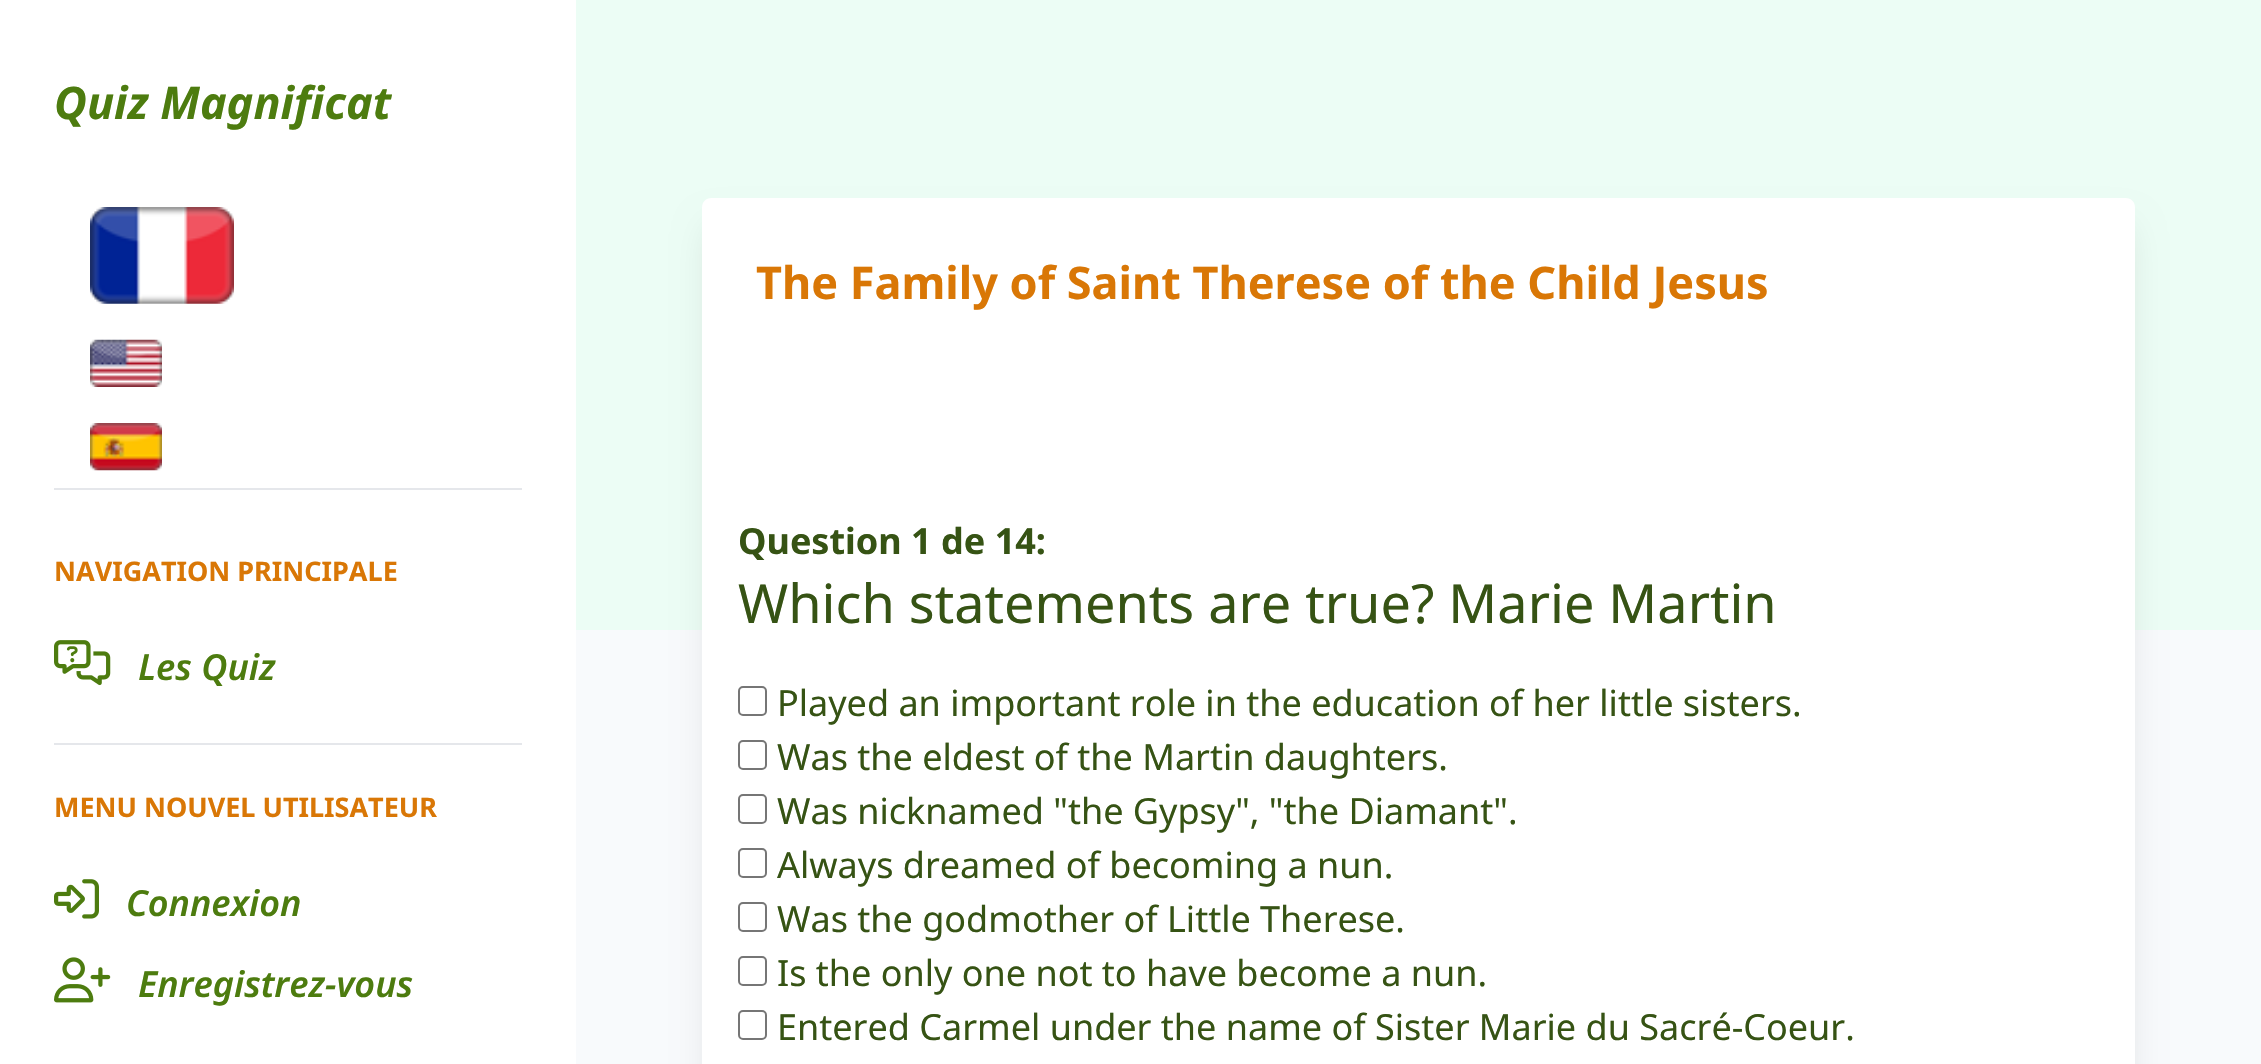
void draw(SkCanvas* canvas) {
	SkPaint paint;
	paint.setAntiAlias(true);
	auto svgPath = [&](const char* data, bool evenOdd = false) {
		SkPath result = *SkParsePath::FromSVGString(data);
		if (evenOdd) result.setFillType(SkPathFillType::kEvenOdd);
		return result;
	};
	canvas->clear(0xffffffff);
	SkFont f1(fontMgr->matchFamilyStyle("Noto Sans", SkFontStyle::BoldItalic()), 45);
	f1.setSubpixel(true);
	paint.setColor(0xff4d7c0f);
	canvas->drawString("Quiz Magnificat", 54, 119, f1, paint);
	canvas->drawImageRect(SkImages::DeferredFromEncodedData(SkData::MakeFromFileName("img1.png")), SkRect::MakeXYWH(90, 207, 144, 97), SkSamplingOptions());
	canvas->drawImageRect(SkImages::DeferredFromEncodedData(SkData::MakeFromFileName("img2.png")), SkRect::MakeXYWH(90, 339, 72, 48), SkSamplingOptions());
	canvas->drawImageRect(SkImages::DeferredFromEncodedData(SkData::MakeFromFileName("img3.png")), SkRect::MakeXYWH(90, 423, 72, 48), SkSamplingOptions());
	paint.setColor(0xffe5e7eb);
	canvas->drawRect(SkRect::MakeXYWH(54, 488, 468, 2), paint);
	SkFont f2(fontMgr->matchFamilyStyle("Noto Sans", SkFontStyle::Bold()), 27);
	f2.setSubpixel(true);
	paint.setColor(0xffd97706);
	canvas->drawString("NAVIGATION PRINCIPALE", 54, 581, f2, paint);
	canvas->drawImageRect(SkImages::DeferredFromEncodedData(SkData::MakeFromFileName("img4.png")), SkRect::MakeXYWH(54, 640, 57, 46), SkSamplingOptions());
	SkFont f3(fontMgr->matchFamilyStyle("Noto Sans", SkFontStyle(600, SkFontStyle::kNormal_Width, SkFontStyle::kItalic_Slant)), 36);
	f3.setSubpixel(true);
	paint.setColor(0xff4d7c0f);
	canvas->drawString("Les Quiz", 138, 680, f3, paint);
	paint.setColor(0xffe5e7eb);
	canvas->drawRect(SkRect::MakeXYWH(54, 743, 468, 2), paint);
	paint.setColor(0xffd97706);
	canvas->drawString("MENU NOUVEL UTILISATEUR", 54, 817, f2, paint);
	canvas->drawImageRect(SkImages::DeferredFromEncodedData(SkData::MakeFromFileName("img5.png")), SkRect::MakeXYWH(54, 879, 45, 40), SkSamplingOptions());
	paint.setColor(0xff4d7c0f);
	canvas->drawString("Connexion", 126, 916, f3, paint);
	canvas->drawImageRect(SkImages::DeferredFromEncodedData(SkData::MakeFromFileName("img6.png")), SkRect::MakeXYWH(54, 957, 57, 46), SkSamplingOptions());
	canvas->drawString("Enregistrez-vous", 138, 997, f3, paint);
	paint.setColor(0xfff8fafc);
	canvas->drawRect(SkRect::MakeXYWH(576, 630, 1685, 434), paint);
	paint.setColor(0xffecfdf5);
	canvas->drawRect(SkRect::MakeXYWH(576, 0, 1685, 630), paint);
	paint.setColor(0x1a000000);
	paint.setMaskFilter(SkMaskFilter::MakeBlur(kNormal_SkBlurStyle, 17));
	canvas->drawRoundRect(SkRect::MakeXYWH(709, 227, 1420, 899), 11, 11, paint);
	paint.setMaskFilter(nullptr);
	paint.setColor(0xffffffff);
	canvas->drawRoundRect(SkRect::MakeXYWH(702, 198, 1433, 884), 18, 18, paint);
	canvas->drawPath(svgPath("M711 198H2126C2131 198 2135 202 2135 207V369H702V207C702 202 706 198 711 198Z"), paint);
	SkFont f4(fontMgr->matchFamilyStyle("Noto Sans", SkFontStyle::Bold()), 45);
	f4.setSubpixel(true);
	paint.setColor(0xffd97706);
	canvas->drawString("The Family of Saint Therese of the Child Jesus", 756, 299, f4, paint);
	SkFont f5(fontMgr->matchFamilyStyle("Noto Sans", SkFontStyle::Bold()), 36);
	f5.setSubpixel(true);
	paint.setColor(0xff365314);
	canvas->drawString("Question 1 de 14:", 738, 554, f5, paint);
	SkFont f6(fontMgr->matchFamilyStyle("Noto Sans", SkFontStyle::Normal()), 54);
	f6.setSubpixel(true);
	canvas->drawString("Which statements are true? Marie Martin", 738, 623, f6, paint);
	paint.setStroke(true);
	paint.setStrokeWidth(2);
	paint.setColor(0xff767676);
	canvas->drawRoundRect(SkRect::MakeXYWH(739, 687, 27, 28), 4, 4, paint);
	SkFont f7(fontMgr->matchFamilyStyle("Noto Sans", SkFontStyle::Normal()), 36);
	f7.setSubpixel(true);
	paint.setStroke(false);
	paint.setColor(0xff365314);
	canvas->drawString("Played an important role in the education of her little sisters.", 777, 716, f7, paint);
	paint.setStroke(true);
	paint.setColor(0xff767676);
	canvas->drawRoundRect(SkRect::MakeXYWH(739, 741, 27, 28), 4, 4, paint);
	paint.setStroke(false);
	paint.setColor(0xff365314);
	canvas->drawString("Was the eldest of the Martin daughters.", 777, 770, f7, paint);
	paint.setStroke(true);
	paint.setColor(0xff767676);
	canvas->drawRoundRect(SkRect::MakeXYWH(739, 795, 27, 28), 4, 4, paint);
	paint.setStroke(false);
	paint.setColor(0xff365314);
	canvas->drawString("Was nicknamed \"the Gypsy\", \"the Diamant\".", 777, 824, f7, paint);
	paint.setStroke(true);
	paint.setColor(0xff767676);
	canvas->drawRoundRect(SkRect::MakeXYWH(739, 849, 27, 28), 4, 4, paint);
	paint.setStroke(false);
	paint.setColor(0xff365314);
	canvas->drawString("Always dreamed of becoming a nun.", 777, 878, f7, paint);
	paint.setStroke(true);
	paint.setColor(0xff767676);
	canvas->drawRoundRect(SkRect::MakeXYWH(739, 903, 27, 28), 4, 4, paint);
	paint.setStroke(false);
	paint.setColor(0xff365314);
	canvas->drawString("Was the godmother of Little Therese.", 777, 932, f7, paint);
	paint.setStroke(true);
	paint.setColor(0xff767676);
	canvas->drawRoundRect(SkRect::MakeXYWH(739, 957, 27, 28), 4, 4, paint);
	paint.setStroke(false);
	paint.setColor(0xff365314);
	canvas->drawString("Is the only one not to have become a nun.", 777, 986, f7, paint);
	paint.setStroke(true);
	paint.setColor(0xff767676);
	canvas->drawRoundRect(SkRect::MakeXYWH(739, 1011, 27, 28), 4, 4, paint);
	paint.setStroke(false);
	paint.setColor(0xff365314);
	canvas->drawString("Entered Carmel under the name of Sister Marie du Sacré-Coeur.", 777, 1040, f7, paint);
}
